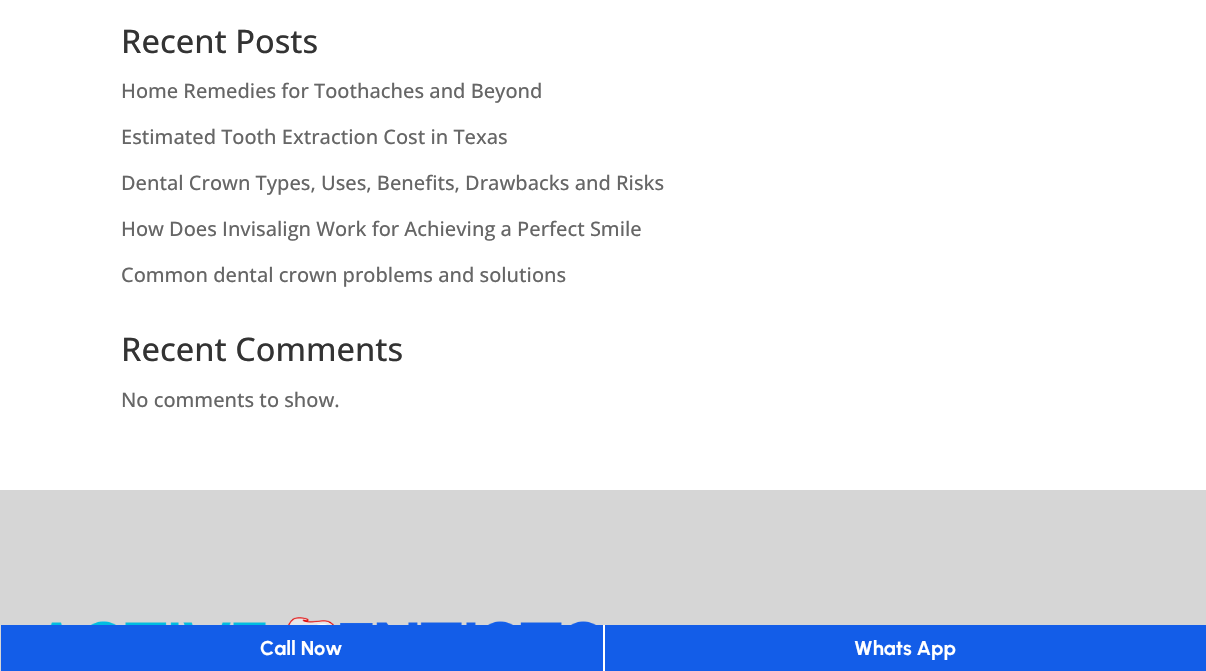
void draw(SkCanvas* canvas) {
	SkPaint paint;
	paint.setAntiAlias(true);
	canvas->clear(0xffffffff);
	SkFont f1(fontMgr->matchFamilyStyle("Open Sans", SkFontStyle(500, SkFontStyle::kNormal_Width, SkFontStyle::kUpright_Slant)), 32.5);
	f1.setSubpixel(true);
	paint.setColor(0xff333333);
	canvas->drawString("Recent Posts", 121, 53, f1, paint);
	SkFont f2(fontMgr->matchFamilyStyle("Open Sans", SkFontStyle(500, SkFontStyle::kNormal_Width, SkFontStyle::kUpright_Slant)), 20);
	f2.setSubpixel(true);
	paint.setColor(0xff666666);
	canvas->drawString("Home Remedies for Toothaches and Beyond", 121, 98, f2, paint);
	canvas->drawString("Estimated Tooth Extraction Cost in Texas", 121, 144, f2, paint);
	canvas->drawString("Dental Crown Types, Uses, Benefits, Drawbacks and Risks", 121, 190, f2, paint);
	canvas->drawString("How Does Invisalign Work for Achieving a Perfect Smile", 121, 236, f2, paint);
	canvas->drawString("Common dental crown problems and solutions", 121, 282, f2, paint);
	paint.setColor(0xff333333);
	canvas->drawString("Recent Comments", 121, 361, f1, paint);
	paint.setColor(0xff666666);
	canvas->drawString("No comments to show.", 121, 407, f2, paint);
	paint.setColor(0xffd6d6d6);
	canvas->drawRect(SkRect::MakeXYWH(0, 490, 1206, 181), paint);
	canvas->drawImageRect(SkImages::DeferredFromEncodedData(SkData::MakeFromFileName("img1.png")), SkRect::MakeXYWH(50, 617, 546, 8), SkSamplingOptions());
	paint.setColor(0xff135de8);
	canvas->drawRect(SkRect::MakeXYWH(1, 625, 1205, 46), paint);
	paint.setColor(0xffffffff);
	canvas->drawRect(SkRect::MakeXYWH(603, 625, 2, 46), paint);
	SkFont f3(fontMgr->matchFamilyStyle("Urbanist", SkFontStyle::Bold()), 20);
	f3.setSubpixel(true);
	canvas->drawString("Call Now", 260, 655, f3, paint);
	canvas->drawString("Whats App", 854, 655, f3, paint);
}
